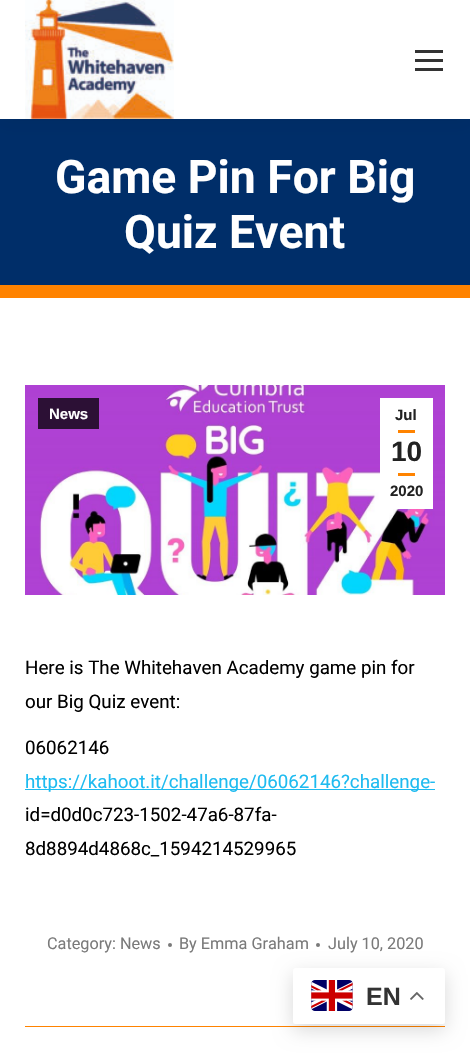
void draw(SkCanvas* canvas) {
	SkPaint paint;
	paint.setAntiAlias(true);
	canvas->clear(0xffffffff);
	paint.setColor(0xff002e69);
	canvas->drawRect(SkRect::MakeXYWH(0, 119, 470, 166), paint);
	paint.setColor(0x12000000);
	paint.setMaskFilter(SkMaskFilter::MakeBlur(kNormal_SkBlurStyle, 9.5));
	canvas->drawRect(SkRect::MakeXYWH(-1, -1, 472, 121), paint);
	paint.setMaskFilter(nullptr);
	paint.setColor(0xffffffff);
	canvas->drawRect(SkRect::MakeXYWH(0, 0, 470, 119), paint);
	canvas->drawImageRect(SkImages::DeferredFromEncodedData(SkData::MakeFromFileName("img1.png")), SkRect::MakeXYWH(25, 0, 149, 119), SkSamplingOptions());
	paint.setColor(0xff333333);
	canvas->drawRect(SkRect::MakeXYWH(415, 50, 28, 3), paint);
	canvas->drawRect(SkRect::MakeXYWH(415, 59, 28, 3), paint);
	canvas->drawRect(SkRect::MakeXYWH(415, 68, 28, 3), paint);
	paint.setColor(0xffff8300);
	canvas->drawRect(SkRect::MakeXYWH(0, 285, 470, 13), paint);
	SkFont f1(fontMgr->matchFamilyStyle("Roboto", SkFontStyle::Bold()), 46.25);
	f1.setSubpixel(true);
	paint.setColor(0xffffffff);
	canvas->drawString("Game Pin For Big", 55, 193, f1, paint);
	canvas->drawString("Quiz Event", 124, 248, f1, paint);
	canvas->drawImageRect(SkImages::DeferredFromEncodedData(SkData::MakeFromFileName("img2.png")), SkRect::MakeXYWH(25, 385, 420, 210), SkSamplingOptions());
	paint.setColor(0xff2c1035);
	canvas->drawRect(SkRect::MakeXYWH(38, 398, 61, 31), paint);
	SkFont f2(fontMgr->matchFamilyStyle("Liberation Sans", SkFontStyle::Bold()), 15);
	f2.setSubpixel(true);
	paint.setColor(0xffffffff);
	canvas->drawString("News", 49, 419, f2, paint);
	canvas->drawRect(SkRect::MakeXYWH(380, 398, 53, 111), paint);
	paint.setColor(0xff222222);
	canvas->drawString("Jul", 395, 420, f2, paint);
	paint.setColor(0xffff8300);
	canvas->drawRect(SkRect::MakeXYWH(398, 430, 17, 3), paint);
	SkFont f3(fontMgr->matchFamilyStyle("Liberation Sans", SkFontStyle::Bold()), 28);
	f3.setSubpixel(true);
	paint.setColor(0xff222222);
	canvas->drawString("10", 391, 461, f3, paint);
	paint.setColor(0xffff8300);
	canvas->drawRect(SkRect::MakeXYWH(398, 473, 17, 3), paint);
	paint.setColor(0xff222222);
	canvas->drawString("2020", 390, 496, f2, paint);
	SkFont f4(fontMgr->matchFamilyStyle("Roboto", SkFontStyle::Normal()), 18.75);
	f4.setSubpixel(true);
	paint.setColor(0xff000000);
	canvas->drawString("Here is The Whitehaven Academy game pin for", 25, 674, f4, paint);
	canvas->drawString("our Big Quiz event:", 25, 708, f4, paint);
	canvas->drawString("06062146", 25, 754, f4, paint);
	paint.setColor(0xff1ebbf0);
	canvas->drawRect(SkRect::MakeXYWH(25, 789, 410, 1), paint);
	canvas->drawString("https://kahoot.it/challenge/06062146?challenge-", 25, 788, f4, paint);
	paint.setColor(0xff000000);
	canvas->drawString("id=d0d0c723-1502-47a6-87fa-", 25, 821, f4, paint);
	canvas->drawString("8d8894d4868c_1594214529965", 25, 855, f4, paint);
	SkFont f5(fontMgr->matchFamilyStyle("Roboto", SkFontStyle::Normal()), 16.25);
	f5.setSubpixel(true);
	paint.setColor(0xff7a7a7a);
	canvas->drawString("Category: News", 47, 949, f5, paint);
	canvas->drawCircle(170, 945, 2, paint);
	canvas->drawString("By Emma Graham", 179, 949, f5, paint);
	canvas->drawCircle(318, 945, 2, paint);
	canvas->drawString("July 10, 2020", 328, 949, f5, paint);
	paint.setColor(0xffff8300);
	canvas->drawRect(SkRect::MakeXYWH(25, 1026, 420, 1), paint);
	paint.setColor(0x26000000);
	paint.setMaskFilter(SkMaskFilter::MakeBlur(kNormal_SkBlurStyle, 9.5));
	canvas->drawRoundRect(SkRect::MakeXYWH(293, 974, 152, 56), 2.5, 2.5, paint);
	paint.setMaskFilter(nullptr);
	paint.setColor(0xffffffff);
	canvas->drawRoundRect(SkRect::MakeXYWH(293, 968, 152, 56), 2.5, 2.5, paint);
	canvas->drawImageRect(SkImages::DeferredFromEncodedData(SkData::MakeFromFileName("img3.png")), SkRect::MakeXYWH(311, 980, 42, 31), SkSamplingOptions());
	SkFont f6(fontMgr->matchFamilyStyle("Liberation Sans", SkFontStyle::Bold()), 25);
	f6.setSubpixel(true);
	paint.setColor(0xff333333);
	canvas->drawString("EN", 366, 1005, f6, paint);
	canvas->drawImageRect(SkImages::DeferredFromEncodedData(SkData::MakeFromFileName("img4.png")), SkRect::MakeXYWH(410, 992, 14, 8), SkSamplingOptions());
}
